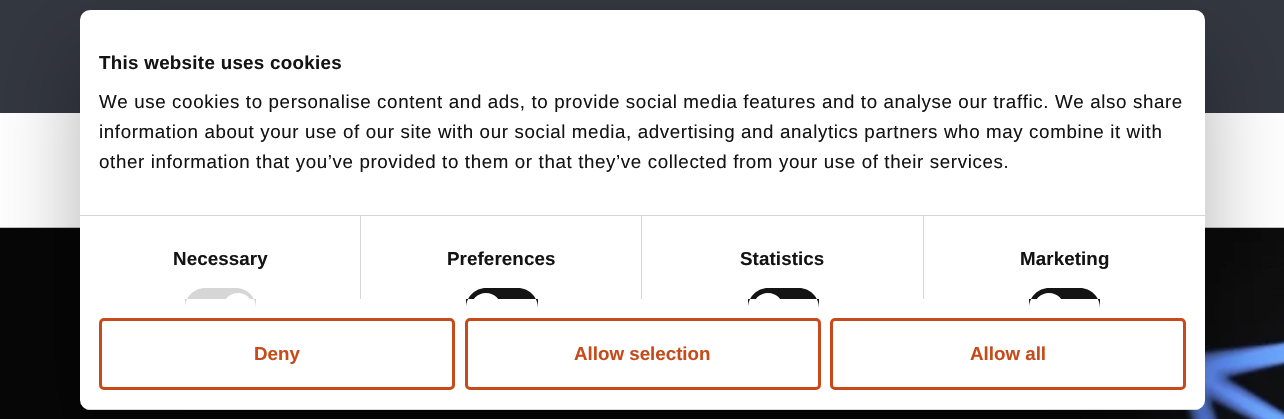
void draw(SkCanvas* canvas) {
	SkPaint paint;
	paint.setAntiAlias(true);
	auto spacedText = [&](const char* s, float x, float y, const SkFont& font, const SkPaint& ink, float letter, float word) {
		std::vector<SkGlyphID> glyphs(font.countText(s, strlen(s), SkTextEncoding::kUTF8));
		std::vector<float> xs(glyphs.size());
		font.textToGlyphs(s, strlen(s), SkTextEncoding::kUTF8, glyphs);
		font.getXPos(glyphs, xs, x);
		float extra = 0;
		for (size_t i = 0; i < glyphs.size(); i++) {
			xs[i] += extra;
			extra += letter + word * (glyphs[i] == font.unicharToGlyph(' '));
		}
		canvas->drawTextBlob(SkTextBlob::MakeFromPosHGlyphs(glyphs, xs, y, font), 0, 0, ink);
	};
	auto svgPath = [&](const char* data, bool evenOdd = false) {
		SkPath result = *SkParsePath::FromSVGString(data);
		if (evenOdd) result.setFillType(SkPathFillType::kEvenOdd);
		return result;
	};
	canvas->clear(0xffffffff);
	paint.setColor(0xff333740);
	canvas->drawRect(SkRect::MakeXYWH(0, 0, 1284, 113), paint);
	canvas->drawImageRect(SkImages::DeferredFromEncodedData(SkData::MakeFromFileName("img1.png")), SkRect::MakeXYWH(0, 227, 1284, 192), SkSamplingOptions());
	paint.setColor(0x4d000000);
	paint.setMaskFilter(SkMaskFilter::MakeBlur(kNormal_SkBlurStyle, 42.5));
	canvas->drawRoundRect(SkRect::MakeXYWH(80, 50, 1125, 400), 10, 10, paint);
	paint.setMaskFilter(nullptr);
	paint.setColor(0xffffffff);
	canvas->drawRoundRect(SkRect::MakeXYWH(80, 10, 1125, 400), 10, 10, paint);
	paint.setColor(0xffd6d6d6);
	canvas->drawRect(SkRect::MakeXYWH(80, 215, 1125, 1), paint);
	SkFont f1(fontMgr->matchFamilyStyle("Liberation Sans", SkFontStyle::Bold()), 18.75);
	f1.setSubpixel(true);
	paint.setColor(0xff141414);
	spacedText("This website uses cookies", 99, 69, f1, paint, 0.3, 0);
	SkFont f2(fontMgr->matchFamilyStyle("Liberation Sans", SkFontStyle::Normal()), 18.75);
	f2.setSubpixel(true);
	spacedText("We use cookies to personalise content and ads, to provide social media features and to analyse our traffic. We also share", 99, 108, f2, paint, 0.62, 0);
	spacedText("information about your use of our site with our social media, advertising and analytics partners who may combine it with", 99, 138, f2, paint, 0.62, 0);
	spacedText("other information that you’ve provided to them or that they’ve collected from your use of their services.", 99, 168, f2, paint, 0.62, 0);
	paint.setColor(0xffd6d6d6);
	canvas->drawRect(SkRect::MakeXYWH(360, 216, 1, 83), paint);
	paint.setColor(0xff141414);
	spacedText("Necessary", 173, 265, f1, paint, 0.1, 0);
	paint.setColor(0xffd6d6d6);
	canvas->drawPath(svgPath("M205 288H236C247 288 256 297 256 308V299H185V308C185 297 194 288 205 288Z"), paint);
	paint.setColor(0xffffffff);
	canvas->drawPath(svgPath("M238 293C246.5 293 253 299.5 253 308V299H223V308C223 299.5 229.5 293 238 293Z"), paint);
	paint.setColor(0xffd6d6d6);
	canvas->drawRect(SkRect::MakeXYWH(641, 216, 1, 83), paint);
	paint.setColor(0xff141414);
	spacedText("Preferences", 447, 265, f1, paint, 0.1, 0);
	canvas->drawPath(svgPath("M486 288H518C529 288 538 297 538 308V299H466V308C466 297 475 288 486 288Z"), paint);
	paint.setColor(0xffffffff);
	canvas->drawPath(svgPath("M486 293C494.5 293 501 299.5 501 308V299H471V308C471 299.5 477.5 293 486 293Z"), paint);
	paint.setColor(0xffd6d6d6);
	canvas->drawRect(SkRect::MakeXYWH(923, 216, 1, 83), paint);
	paint.setColor(0xff141414);
	spacedText("Statistics", 740, 265, f1, paint, 0.1, 0);
	canvas->drawPath(svgPath("M768 288H799C810 288 819 297 819 308V299H748V308C748 297 757 288 768 288Z"), paint);
	paint.setColor(0xffffffff);
	canvas->drawPath(svgPath("M768 293C776.5 293 783 299.5 783 308V299H753V308C753 299.5 759.5 293 768 293Z"), paint);
	paint.setColor(0xff141414);
	spacedText("Marketing", 1020, 265, f1, paint, 0.1, 0);
	canvas->drawPath(svgPath("M1049 288H1080C1091 288 1100 297 1100 308V299H1029V308C1029 297 1038 288 1049 288Z"), paint);
	paint.setColor(0xffffffff);
	canvas->drawPath(svgPath("M1049 293C1057.5 293 1064 299.5 1064 308V299H1034V308C1034 299.5 1040.5 293 1049 293Z"), paint);
	canvas->save();
	canvas->clipPath(svgPath("M90 10H1195C1200.5 10 1205 14.5 1205 20V400C1205 405.5 1200.5 410 1195 410H90C84.5 410 80 405.5 80 400V20C80 14.5 84.5 10 90 10Z"), true);
	paint.setColor(0xffd6d6d6);
	canvas->drawRect(SkRect::MakeXYWH(80, 409, 1125, 1), paint);
	canvas->restore();
	paint.setStroke(true);
	paint.setStrokeWidth(3);
	paint.setColor(0xffc74a1b);
	canvas->drawRoundRect(SkRect::MakeXYWH(100.5, 319.5, 353, 69), 3.5, 3.5, paint);
	paint.setStroke(false);
	canvas->drawString("Deny", 254, 360, f1, paint);
	paint.setStroke(true);
	canvas->drawRoundRect(SkRect::MakeXYWH(466.5, 319.5, 353, 69), 3.5, 3.5, paint);
	paint.setStroke(false);
	canvas->drawString("Allow selection", 574, 360, f1, paint);
	paint.setStroke(true);
	canvas->drawRoundRect(SkRect::MakeXYWH(831.5, 319.5, 353, 69), 3.5, 3.5, paint);
	paint.setStroke(false);
	canvas->drawString("Allow all", 970, 360, f1, paint);
}
